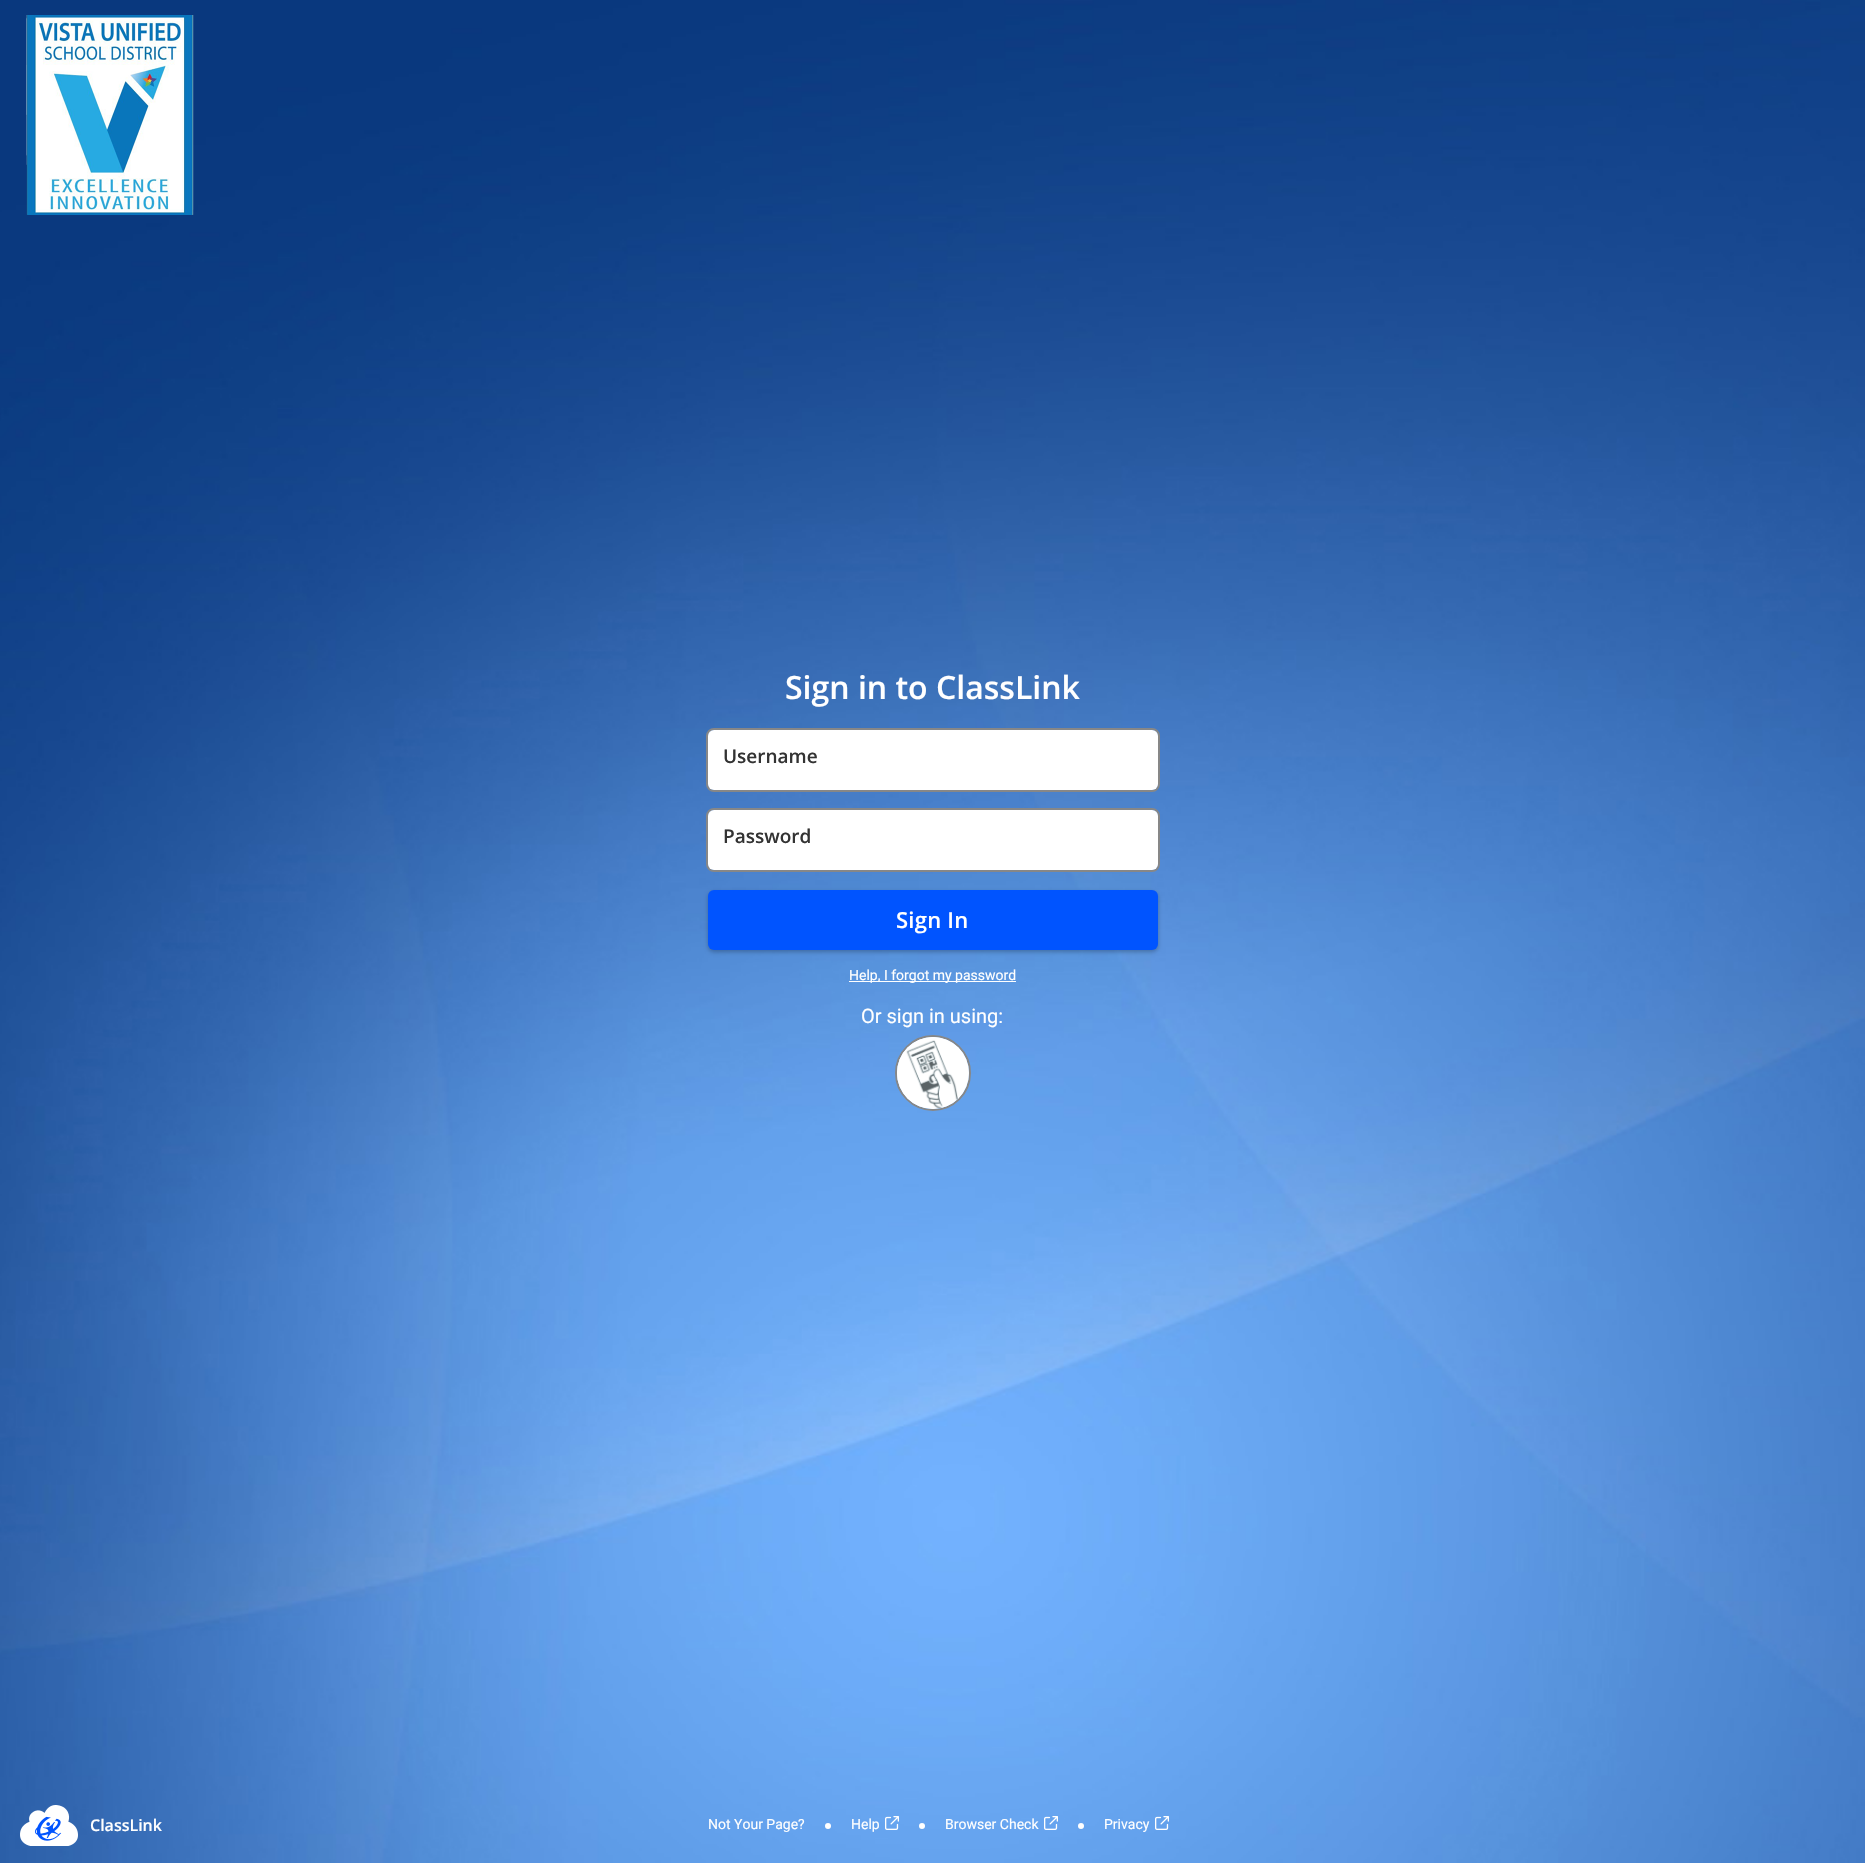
void draw(SkCanvas* canvas) {
	SkPaint paint;
	paint.setAntiAlias(true);
	auto spacedText = [&](const char* s, float x, float y, const SkFont& font, const SkPaint& ink, float letter, float word) {
		std::vector<SkGlyphID> glyphs(font.countText(s, strlen(s), SkTextEncoding::kUTF8));
		std::vector<float> xs(glyphs.size());
		font.textToGlyphs(s, strlen(s), SkTextEncoding::kUTF8, glyphs);
		font.getXPos(glyphs, xs, x);
		float extra = 0;
		for (size_t i = 0; i < glyphs.size(); i++) {
			xs[i] += extra;
			extra += letter + word * (glyphs[i] == font.unicharToGlyph(' '));
		}
		canvas->drawTextBlob(SkTextBlob::MakeFromPosHGlyphs(glyphs, xs, y, font), 0, 0, ink);
	};
	canvas->clear(0xffffffff);
	canvas->drawImageRect(SkImages::DeferredFromEncodedData(SkData::MakeFromFileName("img1.png")), SkRect::MakeXYWH(0, 0, 1865, 1863), SkSamplingOptions());
	canvas->drawImageRect(SkImages::DeferredFromEncodedData(SkData::MakeFromFileName("img2.png")), SkRect::MakeXYWH(26, 15, 168, 200), SkSamplingOptions());
	SkFont f1(fontMgr->matchFamilyStyle("Open Sans", SkFontStyle(600, SkFontStyle::kNormal_Width, SkFontStyle::kUpright_Slant)), 32);
	f1.setSubpixel(true);
	paint.setColor(0xffffffff);
	canvas->drawString("Sign in to ClassLink", 785, 699, f1, paint);
	paint.setStroke(true);
	paint.setStrokeWidth(2);
	paint.setColor(0xff878787);
	canvas->drawRoundRect(SkRect::MakeXYWH(707, 729, 452, 62), 7, 7, paint);
	paint.setStroke(false);
	paint.setColor(0xffffffff);
	canvas->drawRoundRect(SkRect::MakeXYWH(708, 730, 450, 60), 6, 6, paint);
	SkFont f2(fontMgr->matchFamilyStyle("Open Sans", SkFontStyle(600, SkFontStyle::kNormal_Width, SkFontStyle::kUpright_Slant)), 19);
	f2.setSubpixel(true);
	paint.setColor(0xff333333);
	canvas->drawString("Username", 723, 763, f2, paint);
	paint.setStroke(true);
	paint.setColor(0xff878787);
	canvas->drawRoundRect(SkRect::MakeXYWH(707, 809, 452, 62), 7, 7, paint);
	paint.setStroke(false);
	paint.setColor(0xffffffff);
	canvas->drawRoundRect(SkRect::MakeXYWH(708, 810, 450, 60), 6, 6, paint);
	paint.setColor(0xff333333);
	canvas->drawString("Password", 723, 843, f2, paint);
	paint.setColor(0x40000000);
	paint.setMaskFilter(SkMaskFilter::MakeBlur(kNormal_SkBlurStyle, 2));
	canvas->drawRoundRect(SkRect::MakeXYWH(708, 892, 450, 60), 6, 6, paint);
	paint.setMaskFilter(nullptr);
	paint.setColor(0xff0054ff);
	canvas->drawRoundRect(SkRect::MakeXYWH(708, 890, 450, 60), 6, 6, paint);
	SkFont f3(fontMgr->matchFamilyStyle("Open Sans", SkFontStyle(600, SkFontStyle::kNormal_Width, SkFontStyle::kUpright_Slant)), 22);
	f3.setSubpixel(true);
	paint.setColor(0xffffffff);
	spacedText("Sign In", 896, 928, f3, paint, 0.25, 0);
	canvas->drawRect(SkRect::MakeXYWH(849, 981, 167, 1), paint);
	SkFont f4(fontMgr->matchFamilyStyle("Roboto", SkFontStyle::Normal()), 14);
	f4.setSubpixel(true);
	canvas->drawString("Help, I forgot my password", 849, 980, f4, paint);
	SkFont f5(fontMgr->matchFamilyStyle("Roboto", SkFontStyle::Normal()), 20);
	f5.setSubpixel(true);
	canvas->drawString("Or sign in using:", 861, 1023, f5, paint);
	paint.setStroke(true);
	paint.setColor(0xff878787);
	canvas->drawCircle(933, 1073, 37, paint);
	paint.setStroke(false);
	paint.setColor(0xffffffff);
	canvas->drawCircle(933, 1073, 36, paint);
	canvas->drawImageRect(SkImages::DeferredFromEncodedData(SkData::MakeFromFileName("img3.png")), SkRect::MakeXYWH(897, 1037, 72, 72), SkSamplingOptions());
	canvas->drawImageRect(SkImages::DeferredFromEncodedData(SkData::MakeFromFileName("img4.png")), SkRect::MakeXYWH(20, 1805, 58, 41), SkSamplingOptions());
	SkFont f6(fontMgr->matchFamilyStyle("Open Sans", SkFontStyle(600, SkFontStyle::kNormal_Width, SkFontStyle::kUpright_Slant)), 16);
	f6.setSubpixel(true);
	canvas->drawString("ClassLink", 90, 1831, f6, paint);
	canvas->drawString("Not Your Page?", 708, 1829, f4, paint);
	canvas->drawCircle(828, 1826, 3, paint);
	canvas->drawString("Help", 851, 1829, f4, paint);
	canvas->drawImageRect(SkImages::DeferredFromEncodedData(SkData::MakeFromFileName("img5.png")), SkRect::MakeXYWH(885, 1816, 14, 14), SkSamplingOptions());
	canvas->drawCircle(922, 1826, 3, paint);
	canvas->drawString("Browser Check", 945, 1829, f4, paint);
	canvas->drawImageRect(SkImages::DeferredFromEncodedData(SkData::MakeFromFileName("img6.png")), SkRect::MakeXYWH(1044, 1816, 14, 14), SkSamplingOptions());
	canvas->drawCircle(1081, 1826, 3, paint);
	canvas->drawString("Privacy", 1104, 1829, f4, paint);
	canvas->drawImageRect(SkImages::DeferredFromEncodedData(SkData::MakeFromFileName("img7.png")), SkRect::MakeXYWH(1155, 1816, 14, 14), SkSamplingOptions());
}
